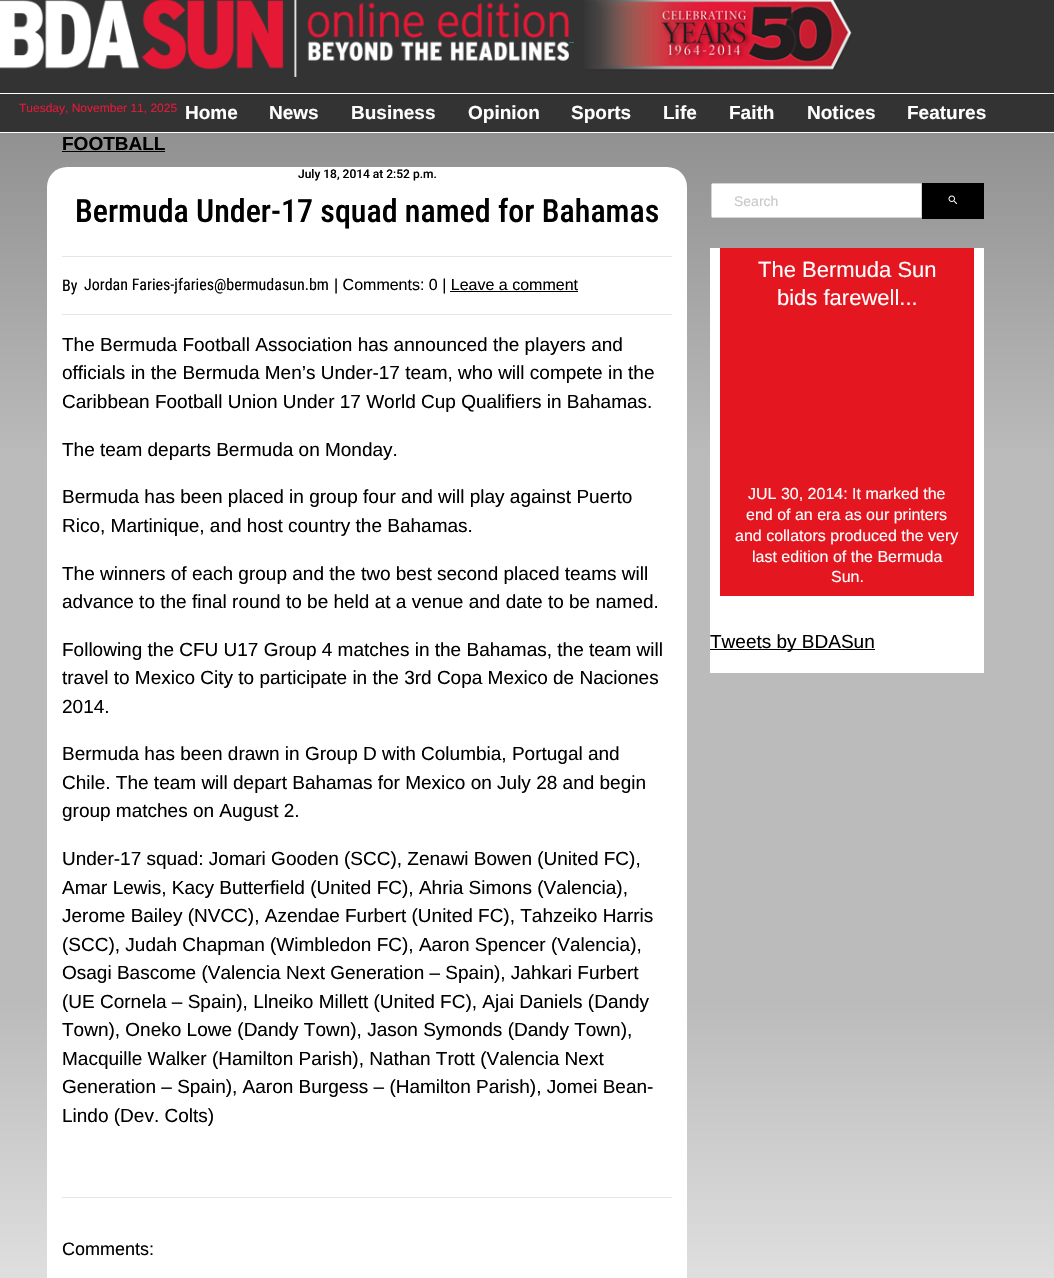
void draw(SkCanvas* canvas) {
	SkPaint paint;
	paint.setAntiAlias(true);
	auto svgPath = [&](const char* data, bool evenOdd = false) {
		SkPath result = *SkParsePath::FromSVGString(data);
		if (evenOdd) result.setFillType(SkPathFillType::kEvenOdd);
		return result;
	};
	canvas->clear(0xffffffff);
	{
		const SkColor colors[] = {0xff777777, 0xffbbbbbb, 0xffbbbbbb, 0xffffffff};
		const float stops[] = {0, 0.33, 0.67, 1};
		const SkPoint ends[] = {{527, -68}, {527, 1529}};
		paint.setShader(SkGradientShader::MakeLinear(ends, colors, stops, 4, SkTileMode::kClamp));
		paint.setAlpha(255);
	}
	canvas->drawRect(SkRect::MakeXYWH(0, 133, 1054, 1145), paint);
	paint.setShader(nullptr);
	paint.setColor(0xff333333);
	canvas->drawRect(SkRect::MakeXYWH(0, 0, 1054, 132), paint);
	canvas->drawImageRect(SkImages::DeferredFromEncodedData(SkData::MakeFromFileName("img1.png")), SkRect::MakeXYWH(0, 0, 569, 77), SkSamplingOptions());
	paint.setColor(0xff2e7f6f);
	canvas->drawRect(SkRect::MakeXYWH(569, 42, 5, 1), paint);
	canvas->drawImageRect(SkImages::DeferredFromEncodedData(SkData::MakeFromFileName("img2.png")), SkRect::MakeXYWH(584, 0, 268, 71), SkSamplingOptions());
	paint.setColor(0xffffffff);
	canvas->drawRect(SkRect::MakeXYWH(0, 93, 1054, 1), paint);
	SkFont f1(fontMgr->matchFamilyStyle("Liberation Sans", SkFontStyle::Normal()), 12);
	f1.setSubpixel(true);
	paint.setColor(0xffe31836);
	canvas->drawString("Tuesday, November 11, 2025", 19, 112, f1, paint);
	SkFont f2(fontMgr->matchFamilyStyle("Liberation Sans", SkFontStyle::Bold()), 19);
	f2.setSubpixel(true);
	paint.setColor(0xffffffff);
	canvas->drawString("Home", 185, 119, f2, paint);
	canvas->drawString("News", 269, 119, f2, paint);
	canvas->drawString("Business", 351, 119, f2, paint);
	canvas->drawString("Opinion", 468, 119, f2, paint);
	canvas->drawString("Sports", 571, 119, f2, paint);
	canvas->drawString("Life", 663, 119, f2, paint);
	canvas->drawString("Faith", 729, 119, f2, paint);
	canvas->drawString("Notices", 807, 119, f2, paint);
	canvas->drawString("Features", 907, 119, f2, paint);
	paint.setColor(0xff000000);
	canvas->drawString("FOOTBALL", 62, 150, f2, paint);
	canvas->drawRect(SkRect::MakeXYWH(62, 151, 103, 1), paint);
	paint.setColor(0xffffffff);
	canvas->drawRoundRect(SkRect::MakeXYWH(47, 167, 640, 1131), 20, 20, paint);
	SkFont f3(fontMgr->matchFamilyStyle("Roboto", SkFontStyle(500, SkFontStyle::kNormal_Width, SkFontStyle::kUpright_Slant)), 12);
	f3.setSubpixel(true);
	paint.setColor(0xff000000);
	canvas->drawString("July 18, 2014 at 2:52 p.m.", 298, 178, f3, paint);
	SkFont f4(fontMgr->matchFamilyStyle("Roboto Condensed", SkFontStyle(500, SkFontStyle::kNormal_Width, SkFontStyle::kUpright_Slant)), 32);
	f4.setSubpixel(true);
	canvas->drawString("Bermuda Under-17 squad named for Bahamas", 75, 222, f4, paint);
	paint.setColor(0xffe6e6e6);
	canvas->drawRect(SkRect::MakeXYWH(62, 256, 610, 1), paint);
	SkFont f5(fontMgr->matchFamilyStyle("Roboto Condensed", SkFontStyle::Normal()), 16);
	f5.setSubpixel(true);
	paint.setColor(0xff000000);
	canvas->drawString("By", 62, 291, f5, paint);
	canvas->drawString("Jordan Faries-jfaries@bermudasun.bm", 84, 290, f5, paint);
	SkFont f6(fontMgr->matchFamilyStyle("Liberation Sans", SkFontStyle::Normal()), 16);
	f6.setSubpixel(true);
	canvas->drawString("| Comments: 0 | Leave a comment", 334, 290, f6, paint);
	canvas->drawRect(SkRect::MakeXYWH(450, 291, 128, 1), paint);
	paint.setColor(0xffe6e6e6);
	canvas->drawRect(SkRect::MakeXYWH(62, 314, 610, 1), paint);
	SkFont f7(fontMgr->matchFamilyStyle("Liberation Sans", SkFontStyle::Normal()), 19);
	f7.setSubpixel(true);
	paint.setColor(0xff000000);
	canvas->drawString("The Bermuda Football Association has announced the players and", 62, 351, f7, paint);
	canvas->drawString("officials in the Bermuda Men’s Under-17 team, who will compete in the", 62, 379, f7, paint);
	canvas->drawString("Caribbean Football Union Under 17 World Cup Qualifiers in Bahamas.", 62, 408, f7, paint);
	canvas->drawString("The team departs Bermuda on Monday.", 62, 456, f7, paint);
	canvas->drawString("Bermuda has been placed in group four and will play against Puerto", 62, 503, f7, paint);
	canvas->drawString("Rico, Martinique, and host country the Bahamas.", 62, 532, f7, paint);
	canvas->drawString("The winners of each group and the two best second placed teams will", 62, 580, f7, paint);
	canvas->drawString("advance to the final round to be held at a venue and date to be named.", 62, 608, f7, paint);
	canvas->drawString("Following the CFU U17 Group 4 matches in the Bahamas, the team will", 62, 656, f7, paint);
	canvas->drawString("travel to Mexico City to participate in the 3rd Copa Mexico de Naciones", 62, 684, f7, paint);
	canvas->drawString("2014.", 62, 713, f7, paint);
	canvas->drawString("Bermuda has been drawn in Group D with Columbia, Portugal and", 62, 760, f7, paint);
	canvas->drawString("Chile. The team will depart Bahamas for Mexico on July 28 and begin", 62, 789, f7, paint);
	canvas->drawString("group matches on August 2.", 62, 817, f7, paint);
	canvas->drawString("Under-17 squad: Jomari Gooden (SCC), Zenawi Bowen (United FC),", 62, 865, f7, paint);
	canvas->drawString("Amar Lewis, Kacy Butterfield (United FC), Ahria Simons (Valencia),", 62, 894, f7, paint);
	canvas->drawString("Jerome Bailey (NVCC), Azendae Furbert (United FC), Tahzeiko Harris", 62, 922, f7, paint);
	canvas->drawString("(SCC), Judah Chapman (Wimbledon FC), Aaron Spencer (Valencia),", 62, 951, f7, paint);
	canvas->drawString("Osagi Bascome (Valencia Next Generation – Spain), Jahkari Furbert", 62, 979, f7, paint);
	canvas->drawString("(UE Cornela – Spain), Llneiko Millett (United FC), Ajai Daniels (Dandy", 62, 1008, f7, paint);
	canvas->drawString("Town), Oneko Lowe (Dandy Town), Jason Symonds (Dandy Town),", 62, 1036, f7, paint);
	canvas->drawString("Macquille Walker (Hamilton Parish), Nathan Trott (Valencia Next", 62, 1065, f7, paint);
	canvas->drawString("Generation – Spain), Aaron Burgess – (Hamilton Parish), Jomei Bean-", 62, 1093, f7, paint);
	canvas->drawString("Lindo (Dev. Colts)", 62, 1122, f7, paint);
	paint.setColor(0xffe6e6e6);
	canvas->drawRect(SkRect::MakeXYWH(62, 1197, 610, 1), paint);
	SkFont f8(fontMgr->matchFamilyStyle("Liberation Sans", SkFontStyle::Normal()), 18);
	f8.setSubpixel(true);
	paint.setColor(0xff000000);
	canvas->drawString("Comments:", 62, 1255, f8, paint);
	paint.setColor(0xffffffff);
	canvas->drawPath(svgPath("M713 183.5H921.5V217.5H713C712 217.5 711.5 217 711.5 216V185C711.5 184 712 183.5 713 183.5Z"), paint);
	paint.setStroke(true);
	paint.setStrokeWidth(1);
	paint.setColor(0xffced4da);
	canvas->drawPath(svgPath("M713 183.5H921.5V217.5H713C712 217.5 711.5 217 711.5 216V185C711.5 184 712 183.5 713 183.5Z"), paint);
	SkFont f9(fontMgr->matchFamilyStyle("Liberation Sans", SkFontStyle::Normal()), 14);
	f9.setSubpixel(true);
	paint.setStroke(false);
	paint.setColor(0xffc9c8c8);
	canvas->drawString("Search", 734, 206, f9, paint);
	paint.setColor(0xff000000);
	canvas->drawRect(SkRect::MakeXYWH(922, 183, 62, 36), paint);
	canvas->drawImageRect(SkImages::DeferredFromEncodedData(SkData::MakeFromFileName("img3.png")), SkRect::MakeXYWH(948, 195, 10, 10), SkSamplingOptions());
	paint.setColor(0xffffffff);
	canvas->drawRect(SkRect::MakeXYWH(710, 248, 274, 425), paint);
	paint.setColor(0xffe41620);
	canvas->drawRect(SkRect::MakeXYWH(720, 248, 254, 348), paint);
	SkFont f10(fontMgr->matchFamilyStyle("Liberation Sans", SkFontStyle::Normal()), 22);
	f10.setSubpixel(true);
	paint.setColor(0xffffffff);
	canvas->drawString("The Bermuda Sun", 758, 277, f10, paint);
	canvas->drawString("bids farewell...", 777, 305, f10, paint);
	canvas->drawString("JUL 30, 2014: It marked the", 748, 499, f6, paint);
	canvas->drawString("end of an era as our printers", 746, 520, f6, paint);
	canvas->drawString("and collators produced the very", 735, 541, f6, paint);
	canvas->drawString("last edition of the Bermuda", 752, 562, f6, paint);
	canvas->drawString("Sun.", 831, 582, f6, paint);
	paint.setColor(0xff000000);
	canvas->drawRect(SkRect::MakeXYWH(710, 649, 165, 1), paint);
	canvas->drawString("Tweets by BDASun", 710, 648, f7, paint);
}
